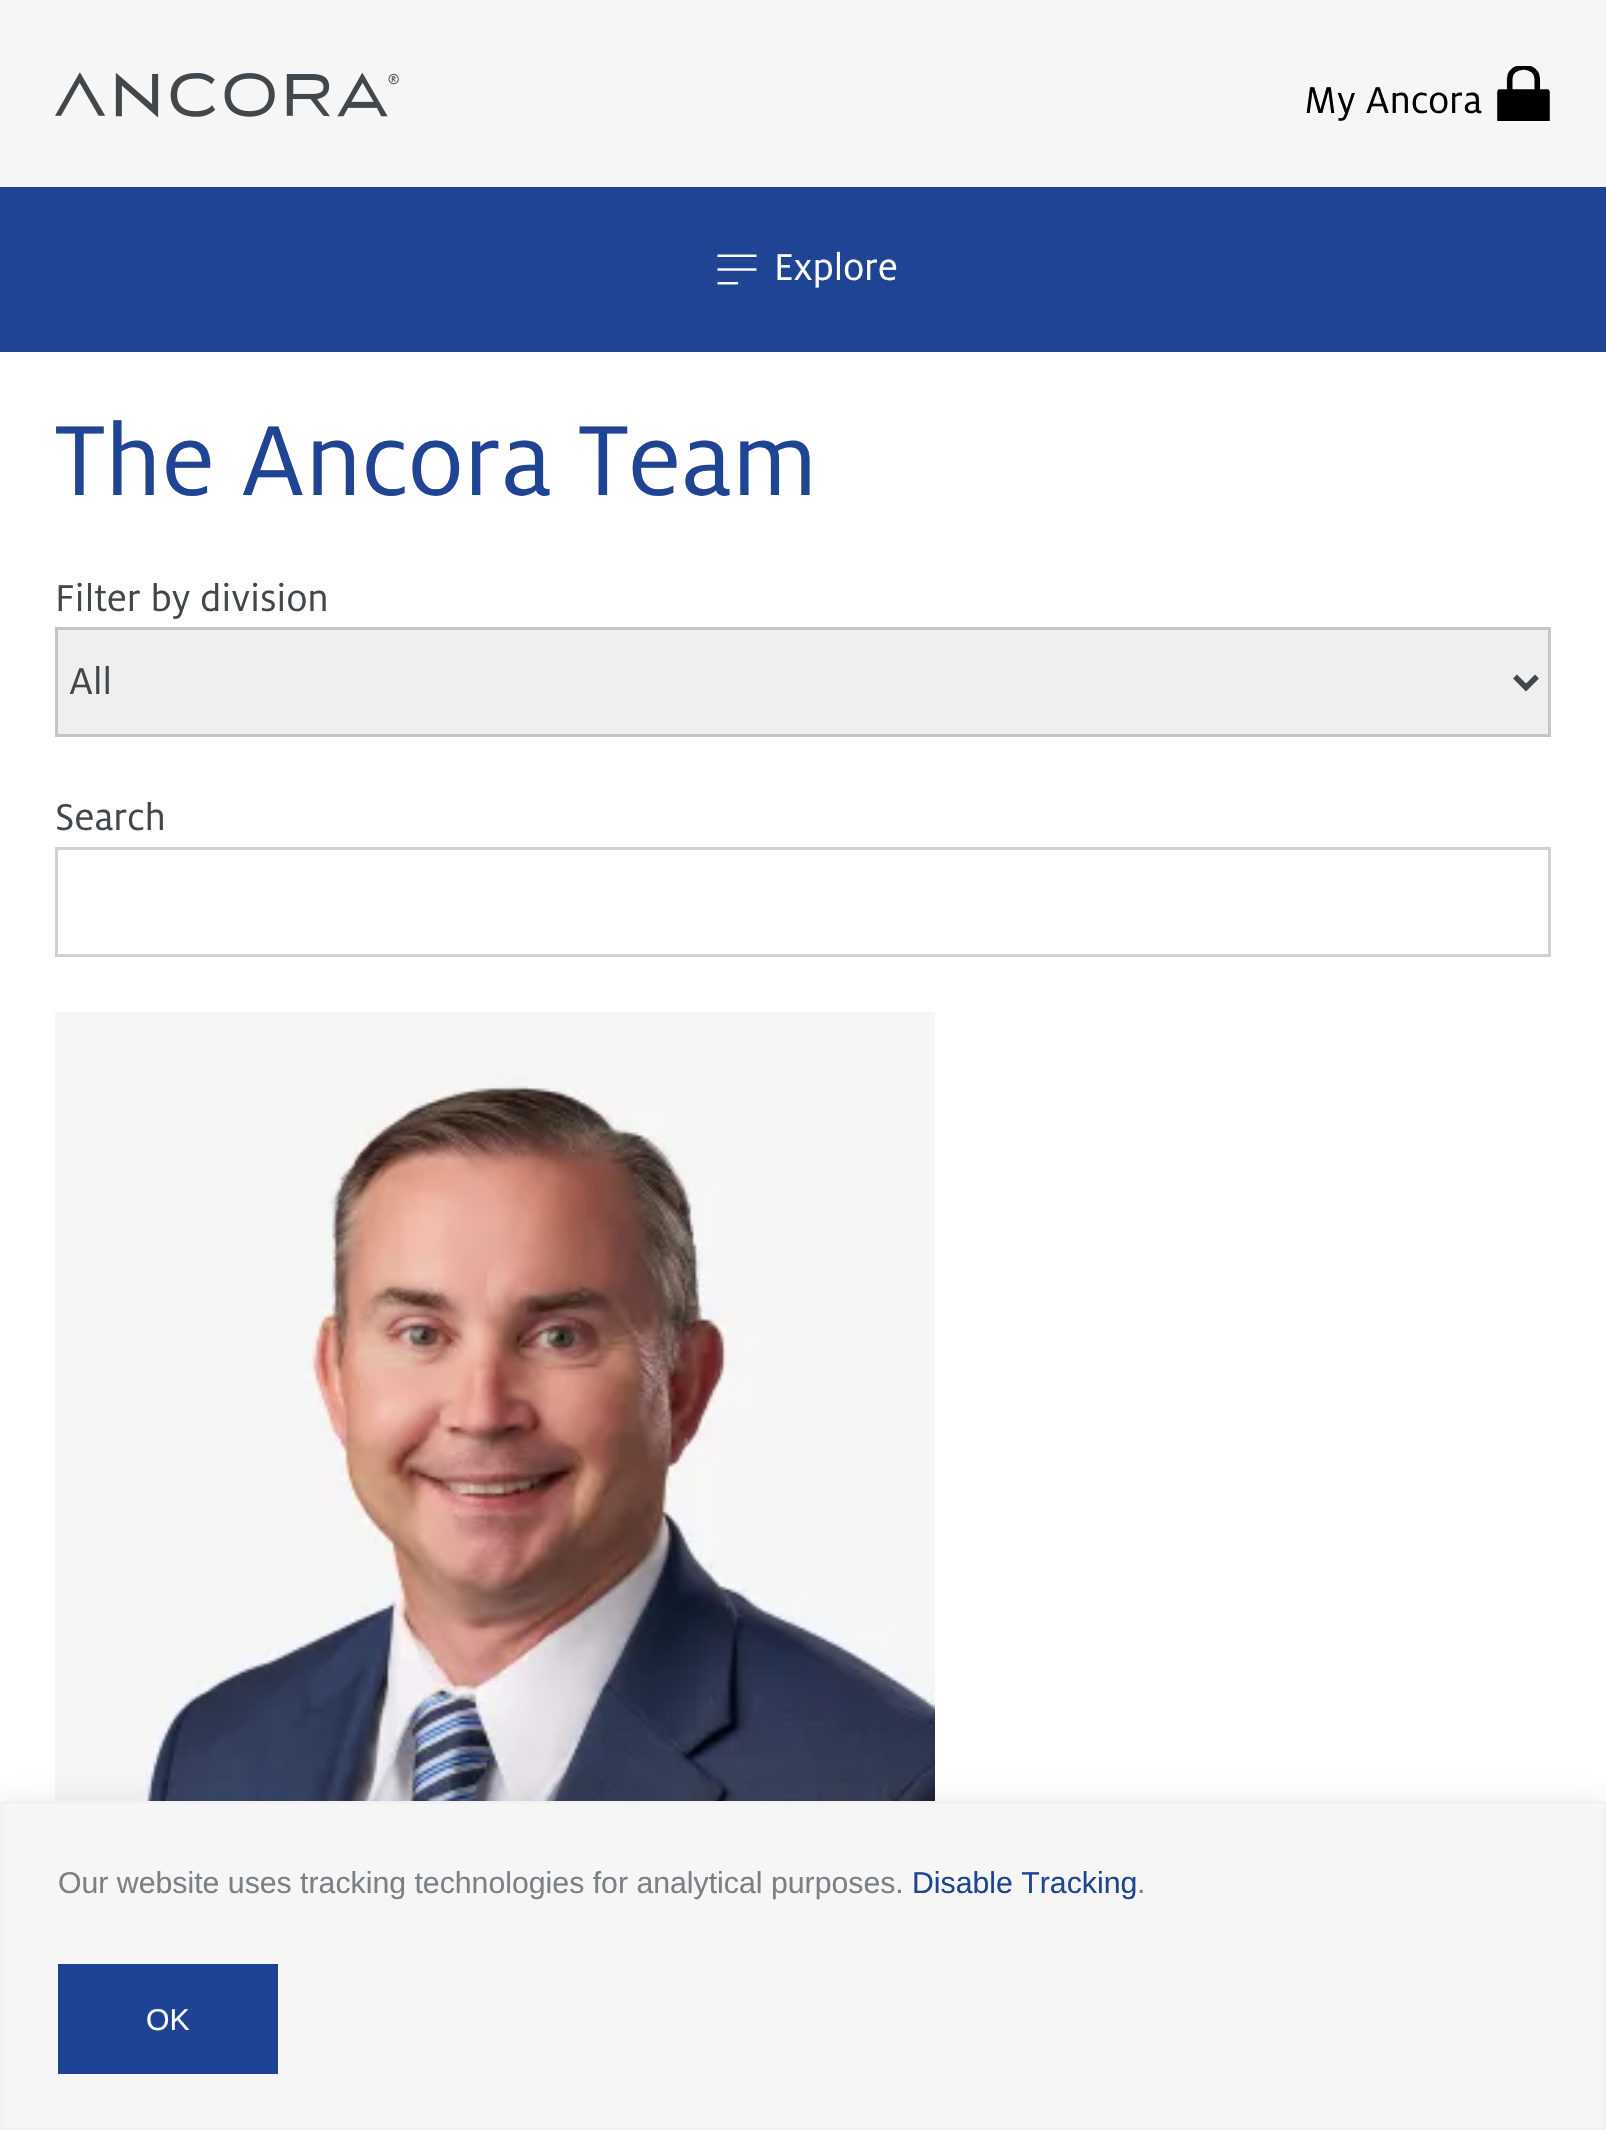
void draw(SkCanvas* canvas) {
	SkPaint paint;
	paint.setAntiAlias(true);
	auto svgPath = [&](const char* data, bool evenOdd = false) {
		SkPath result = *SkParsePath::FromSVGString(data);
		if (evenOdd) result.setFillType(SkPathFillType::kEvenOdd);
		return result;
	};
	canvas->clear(0xfff6f6f6);
	canvas->drawImageRect(SkImages::DeferredFromEncodedData(SkData::MakeFromFileName("img1.png")), SkRect::MakeXYWH(55, 72, 344, 46), SkSamplingOptions());
	SkFont f1(fontMgr->matchFamilyStyle("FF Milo", SkFontStyle::Normal()), 41.25);
	f1.setSubpixel(true);
	paint.setColor(0xff000000);
	canvas->drawString("My Ancora", 1304, 113, f1, paint);
	canvas->drawImageRect(SkImages::DeferredFromEncodedData(SkData::MakeFromFileName("img2.png")), SkRect::MakeXYWH(1497, 66, 53, 55), SkSamplingOptions());
	paint.setColor(0xff1f4493);
	canvas->drawRect(SkRect::MakeXYWH(0, 187, 1606, 165), paint);
	canvas->drawImageRect(SkImages::DeferredFromEncodedData(SkData::MakeFromFileName("img3.png")), SkRect::MakeXYWH(717, 254, 40, 31), SkSamplingOptions());
	paint.setColor(0xffffffff);
	canvas->drawString("Explore", 774, 280, f1, paint);
	canvas->drawRect(SkRect::MakeXYWH(0, 352, 1606, 1449), paint);
	SkFont f2(fontMgr->matchFamilyStyle("FF Milo", SkFontStyle::Normal()), 110);
	f2.setSubpixel(true);
	paint.setColor(0xff1f4493);
	canvas->drawString("The Ancora Team", 55, 495, f2, paint);
	paint.setColor(0xff42474b);
	canvas->drawString("Filter by division", 55, 611, f1, paint);
	paint.setColor(0xffefefef);
	canvas->drawRect(SkRect::MakeXYWH(56.5, 628.5, 1493, 107), paint);
	paint.setStroke(true);
	paint.setStrokeWidth(3);
	paint.setColor(0xffc4c5c6);
	canvas->drawRect(SkRect::MakeXYWH(56.5, 628.5, 1493, 107), paint);
	paint.setStrokeWidth(5.5);
	paint.setColor(0xff42474b);
	canvas->drawPath(svgPath("M1515 676.5L1526 687.5L1537 676.5"), paint);
	paint.setStroke(false);
	canvas->drawString("All", 69, 694, f1, paint);
	canvas->drawString("Search", 55, 830, f1, paint);
	paint.setStroke(true);
	paint.setStrokeWidth(3);
	paint.setColor(0xffd0d1d2);
	canvas->drawRect(SkRect::MakeXYWH(56.5, 848.5, 1493, 107), paint);
	canvas->drawImageRect(SkImages::DeferredFromEncodedData(SkData::MakeFromFileName("img4.png")), SkRect::MakeXYWH(55, 1012, 880, 789), SkSamplingOptions());
	paint.setStroke(false);
	paint.setColor(0x1a4a4a4a);
	paint.setMaskFilter(SkMaskFilter::MakeBlur(kNormal_SkBlurStyle, 14));
	canvas->drawRect(SkRect::MakeXYWH(0, 1799, 1606, 330), paint);
	paint.setMaskFilter(nullptr);
	paint.setColor(0xfff6f6f6);
	canvas->drawRect(SkRect::MakeXYWH(1.5, 1802.5, 1603, 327), paint);
	paint.setStroke(true);
	paint.setColor(0xfff2f2f2);
	canvas->drawRect(SkRect::MakeXYWH(1.5, 1802.5, 1603, 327), paint);
	SkFont f3(fontMgr->matchFamilyStyle("Liberation Sans", SkFontStyle::Normal()), 30.25);
	f3.setSubpixel(true);
	paint.setStroke(false);
	paint.setColor(0xff7b8085);
	canvas->drawString("Our website uses tracking technologies for analytical purposes.", 58, 1893, f3, paint);
	paint.setColor(0xff1f4493);
	canvas->drawString("Disable Tracking", 912, 1893, f3, paint);
	paint.setColor(0xff7b8085);
	canvas->drawString(".", 1137, 1893, f3, paint);
	paint.setColor(0xff1e4294);
	canvas->drawRect(SkRect::MakeXYWH(58, 1964, 220, 110), paint);
	paint.setColor(0xffffffff);
	canvas->drawString("OK", 146, 2030, f3, paint);
}
